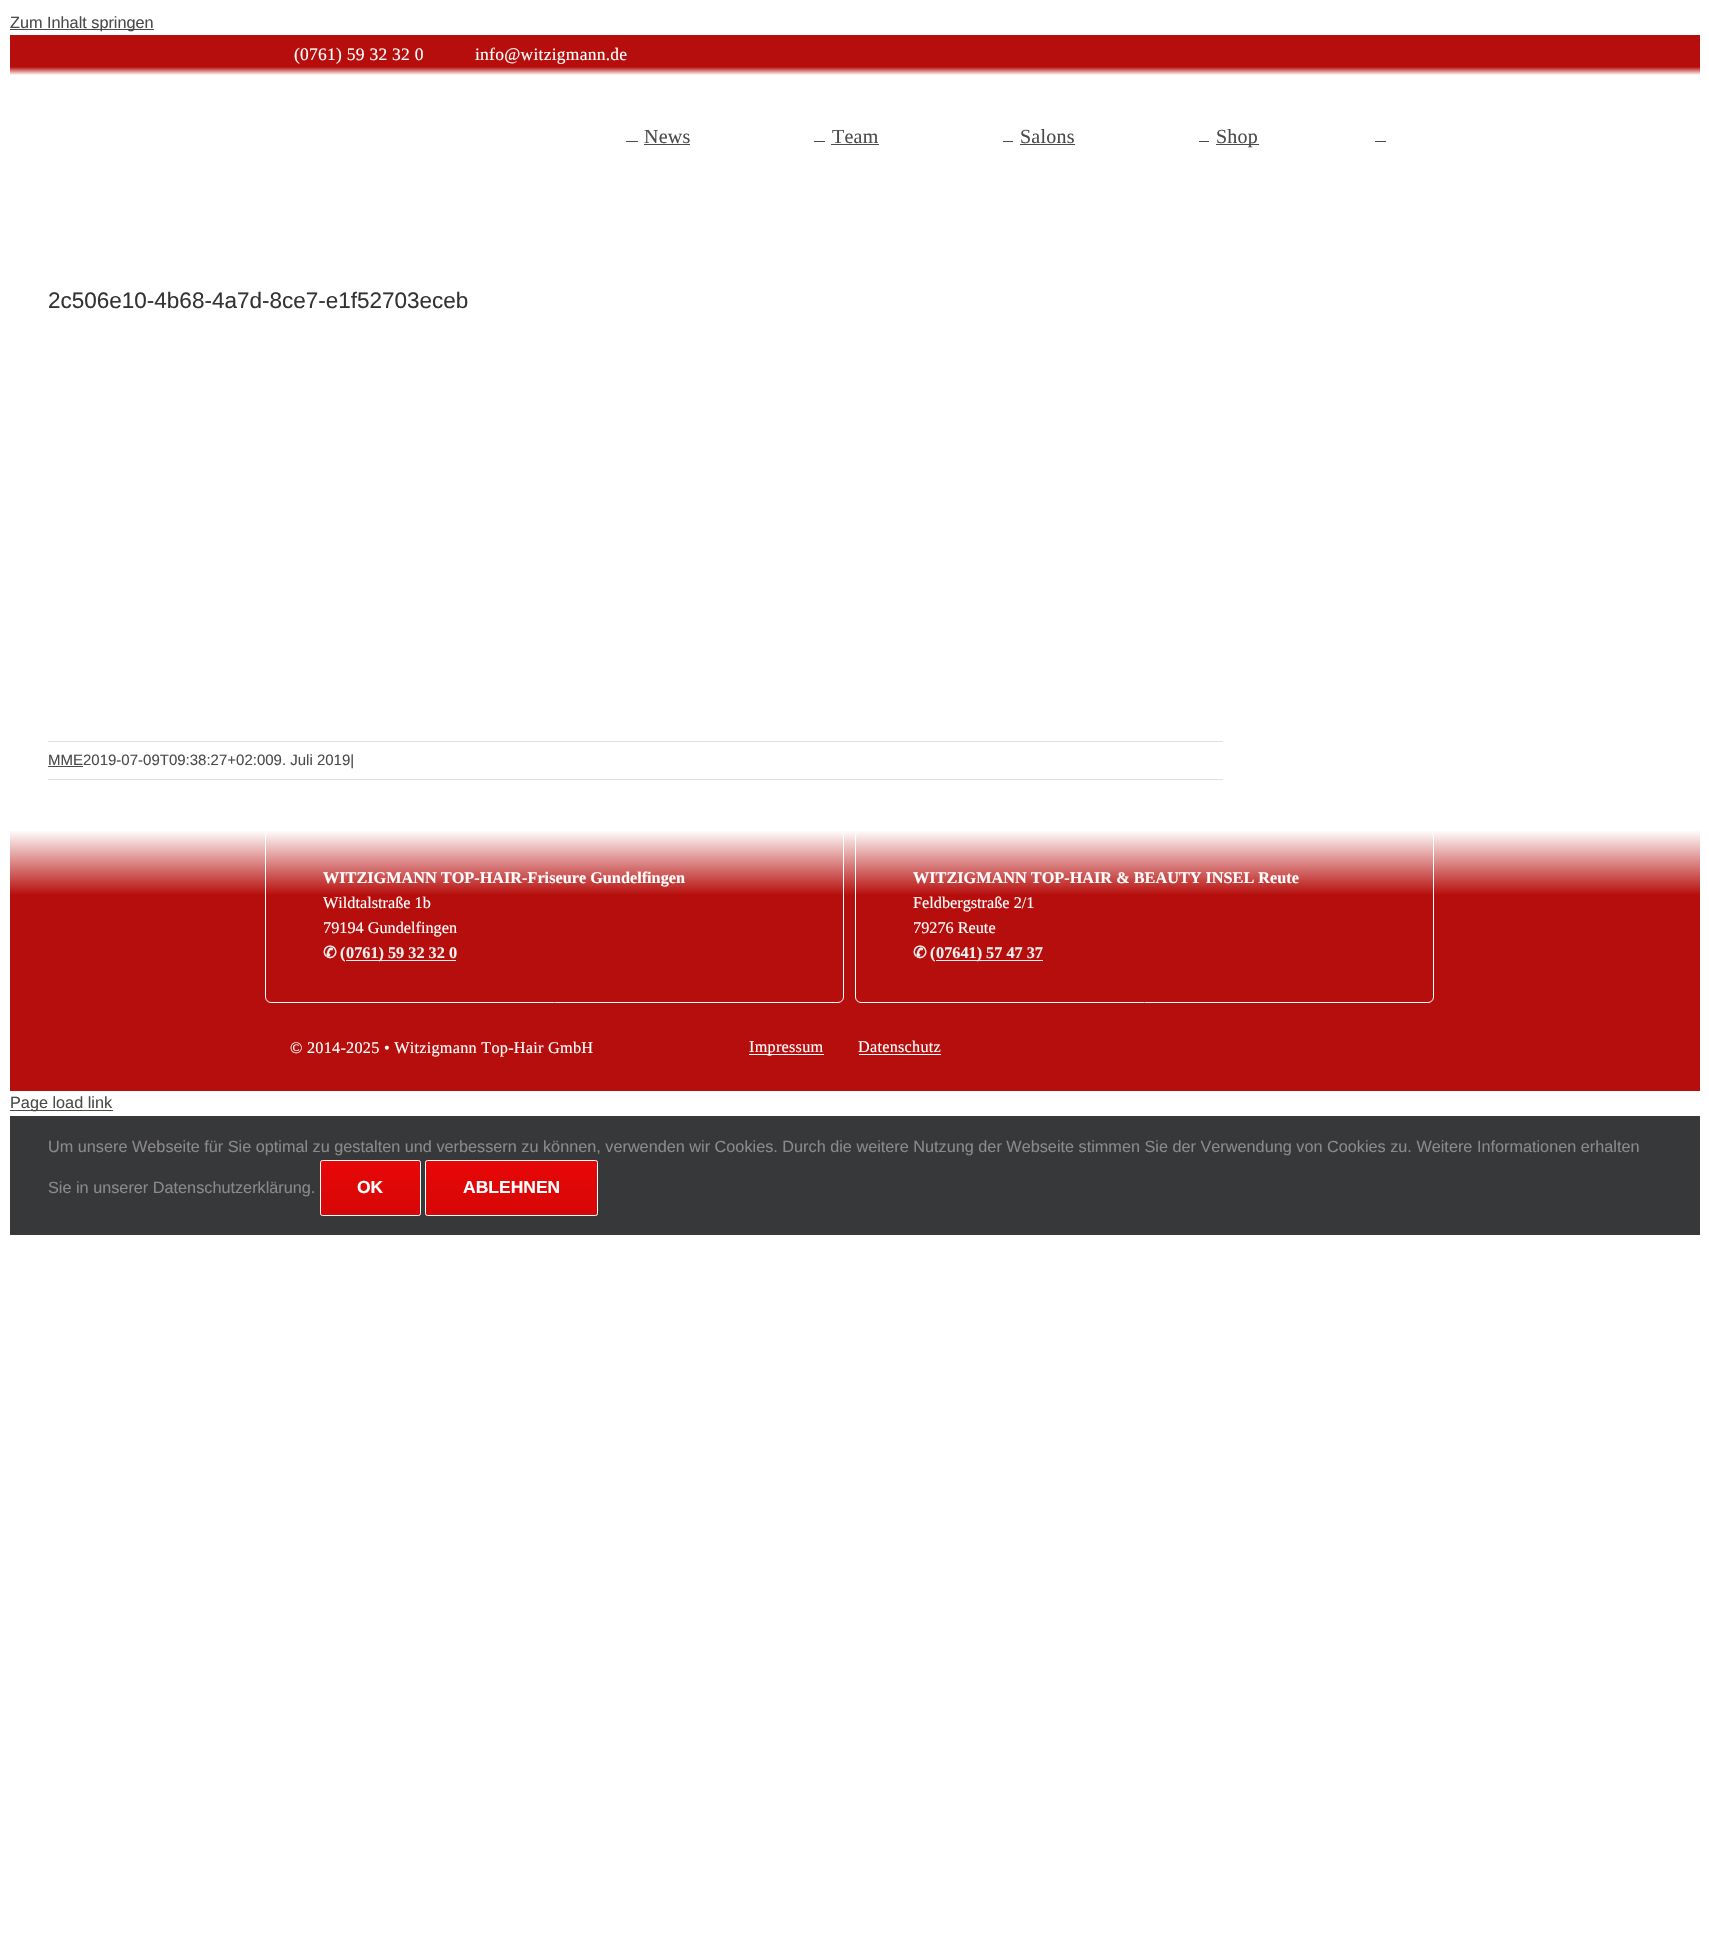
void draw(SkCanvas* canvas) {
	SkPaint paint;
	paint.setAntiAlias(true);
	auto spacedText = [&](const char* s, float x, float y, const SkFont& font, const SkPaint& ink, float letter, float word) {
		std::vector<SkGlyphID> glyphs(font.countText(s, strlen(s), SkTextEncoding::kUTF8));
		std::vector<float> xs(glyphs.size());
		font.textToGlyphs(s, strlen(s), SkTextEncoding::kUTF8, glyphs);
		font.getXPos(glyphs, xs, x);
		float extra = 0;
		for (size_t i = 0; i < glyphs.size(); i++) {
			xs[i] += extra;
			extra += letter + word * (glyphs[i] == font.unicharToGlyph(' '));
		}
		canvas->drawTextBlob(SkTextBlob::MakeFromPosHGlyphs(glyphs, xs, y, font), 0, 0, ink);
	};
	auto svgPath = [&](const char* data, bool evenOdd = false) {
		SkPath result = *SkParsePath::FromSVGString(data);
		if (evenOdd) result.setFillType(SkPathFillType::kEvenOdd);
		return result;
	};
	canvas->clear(0xffffffff);
	paint.setColor(0xff4a4a49);
	canvas->drawRect(SkRect::MakeXYWH(10, 29, 144, 1), paint);
	SkFont f1(fontMgr->matchFamilyStyle("Liberation Sans", SkFontStyle::Normal()), 16.25);
	f1.setSubpixel(true);
	canvas->drawString("Zum Inhalt springen", 10, 28, f1, paint);
	{
		const SkColor colors[] = {0xffb60e0c, 0xffffffff};
		const float stops[] = {0.8, 1};
		const SkPoint ends[] = {{855, 35}, {855, 75}};
		paint.setShader(SkGradientShader::MakeLinear(ends, colors, stops, 2, SkTileMode::kClamp));
		paint.setAlpha(255);
	}
	canvas->drawRect(SkRect::MakeXYWH(10, 35, 1690, 40), paint);
	SkFont f2(fontMgr->matchFamilyStyle("Liberation Serif", SkFontStyle::Normal()), 17.5);
	f2.setSubpixel(true);
	paint.setShader(nullptr);
	paint.setColor(0xffffffff);
	spacedText("(0761) 59 32 32 0", 294, 60, f2, paint, 0.25, 0);
	spacedText("info@witzigmann.de", 475, 60, f2, paint, 0.25, 0);
	paint.setColor(0xff4a4a49);
	canvas->drawRect(SkRect::MakeXYWH(626, 141, 12, 1), paint);
	SkFont f3(fontMgr->matchFamilyStyle("Liberation Serif", SkFontStyle::Normal()), 20);
	f3.setSubpixel(true);
	spacedText("News", 644, 143, f3, paint, 0.25, 0);
	canvas->drawRect(SkRect::MakeXYWH(644, 144, 46, 1), paint);
	canvas->drawRect(SkRect::MakeXYWH(814, 141, 11, 1), paint);
	spacedText("Team", 832, 143, f3, paint, 0.25, 0);
	canvas->drawRect(SkRect::MakeXYWH(831, 144, 48, 1), paint);
	canvas->drawRect(SkRect::MakeXYWH(1003, 141, 10, 1), paint);
	spacedText("Salons", 1020, 143, f3, paint, 0.25, 0);
	canvas->drawRect(SkRect::MakeXYWH(1020, 144, 55, 1), paint);
	canvas->drawRect(SkRect::MakeXYWH(1199, 141, 10, 1), paint);
	canvas->drawRect(SkRect::MakeXYWH(1216, 144, 43, 1), paint);
	spacedText("Shop", 1216, 143, f3, paint, 0.25, 0);
	canvas->drawRect(SkRect::MakeXYWH(1375, 141, 11, 1), paint);
	SkFont f4(fontMgr->matchFamilyStyle("Liberation Sans", SkFontStyle::Normal()), 22.5);
	f4.setSubpixel(true);
	paint.setColor(0xff333333);
	canvas->drawString("2c506e10-4b68-4a7d-8ce7-e1f52703eceb", 48, 308, f4, paint);
	paint.setColor(0xffe0dede);
	canvas->drawRect(SkRect::MakeXYWH(48, 741, 1175, 1), paint);
	canvas->drawRect(SkRect::MakeXYWH(48, 779, 1175, 1), paint);
	paint.setColor(0xff4a4a49);
	canvas->drawRect(SkRect::MakeXYWH(48, 766, 35, 1), paint);
	SkFont f5(fontMgr->matchFamilyStyle("Liberation Sans", SkFontStyle::Normal()), 15);
	f5.setSubpixel(true);
	canvas->drawString("MME2019-07-09T09:38:27+02:009. Juli 2019|", 48, 765, f5, paint);
	{
		const SkColor colors[] = {0xffffffff, 0xffb60e0c};
		const float stops[] = {0, 0.25};
		const SkPoint ends[] = {{855, 830}, {855, 1091}};
		paint.setShader(SkGradientShader::MakeLinear(ends, colors, stops, 2, SkTileMode::kClamp));
		paint.setAlpha(255);
	}
	canvas->drawRect(SkRect::MakeXYWH(10, 831, 1690, 260), paint);
	paint.setStroke(true);
	paint.setStrokeWidth(1);
	paint.setShader(nullptr);
	paint.setColor(0xffffffff);
	canvas->drawRoundRect(SkRect::MakeXYWH(265.5, 830.5, 578, 172), 5.5, 5.5, paint);
	SkFont f6(fontMgr->matchFamilyStyle("Liberation Serif", SkFontStyle::Bold()), 16.25);
	f6.setSubpixel(true);
	paint.setStroke(false);
	canvas->drawString("WITZIGMANN TOP-HAIR-Friseure Gundelfingen", 323, 883, f6, paint);
	SkFont f7(fontMgr->matchFamilyStyle("Liberation Serif", SkFontStyle::Normal()), 16.25);
	f7.setSubpixel(true);
	canvas->drawString("Wildtalstraße 1b", 323, 908, f7, paint);
	canvas->drawString("79194 Gundelfingen", 323, 933, f7, paint);
	SkFont f8(fontMgr->matchFamilyStyle("DejaVu Sans", SkFontStyle::Bold()), 16.25);
	f8.setSubpixel(true);
	paint.setColor(0xfff2f0ef);
	canvas->drawString("✆", 323, 958, f8, paint);
	canvas->drawString("(", 340, 958, f6, paint);
	canvas->drawRect(SkRect::MakeXYWH(346, 960, 110, 1), paint);
	canvas->drawString("0761) 59 32 32 0", 346, 958, f6, paint);
	paint.setStroke(true);
	paint.setColor(0xffffffff);
	canvas->drawRoundRect(SkRect::MakeXYWH(855.5, 830.5, 578, 172), 5.5, 5.5, paint);
	paint.setStroke(false);
	canvas->drawString("WITZIGMANN TOP-HAIR & BEAUTY INSEL Reute", 913, 883, f6, paint);
	canvas->drawString("Feldbergstraße 2/1", 913, 908, f7, paint);
	canvas->drawString("79276 Reute", 913, 933, f7, paint);
	paint.setColor(0xfff2f0ef);
	canvas->drawString("✆", 913, 958, f8, paint);
	canvas->drawString("(", 930, 958, f6, paint);
	canvas->drawRect(SkRect::MakeXYWH(936, 960, 107, 1), paint);
	canvas->drawString("07641) 57 47 37", 936, 958, f6, paint);
	paint.setColor(0xffffffff);
	spacedText("© 2014-2025 • Witzigmann Top-Hair GmbH", 290, 1053, f7, paint, 0.25, 0);
	canvas->drawRect(SkRect::MakeXYWH(749, 1054, 75, 1), paint);
	spacedText("Impressum", 749, 1052, f7, paint, 0.25, 0);
	spacedText("Datenschutz", 858, 1052, f7, paint, 0.25, 0);
	canvas->drawRect(SkRect::MakeXYWH(859, 1054, 82, 1), paint);
	paint.setColor(0xff4a4a49);
	canvas->drawRect(SkRect::MakeXYWH(10, 1110, 103, 1), paint);
	canvas->drawString("Page load link", 10, 1108, f1, paint);
	paint.setColor(0xff363839);
	canvas->drawRect(SkRect::MakeXYWH(10, 1116, 1690, 119), paint);
	paint.setColor(0xff8c8989);
	canvas->drawString("Um unsere Webseite für Sie optimal zu gestalten und verbessern zu können, verwenden wir Cookies. Durch die weitere Nutzung der Webseite stimmen Sie der Verwendung von Cookies zu. Weitere Informationen erhalten", 48, 1152, f1, paint);
	canvas->drawString("Sie in unserer Datenschutzerklärung.", 48, 1193, f1, paint);
	canvas->save();
	canvas->clipPath(svgPath("M322.5 1160H418.5C420 1160 421 1161 421 1162.5V1213.5C421 1215 420 1216 418.5 1216H322.5C321 1216 320 1215 320 1213.5V1162.5C320 1161 321 1160 322.5 1160Z"), true);
	{
		const SkColor colors[] = {0xffe80707, 0xffd60707};
		const float stops[] = {0, 1};
		const SkPoint ends[] = {{371, 1161}, {371, 1215}};
		paint.setShader(SkGradientShader::MakeLinear(ends, colors, stops, 2, SkTileMode::kClamp));
		paint.setAlpha(255);
	}
	canvas->drawRect(SkRect::MakeXYWH(320, 1161, 101, 54), paint);
	canvas->restore();
	paint.setStroke(true);
	paint.setShader(nullptr);
	paint.setColor(0xffffffff);
	canvas->drawRoundRect(SkRect::MakeXYWH(320.5, 1160.5, 100, 55), 2, 2, paint);
	SkFont f9(fontMgr->matchFamilyStyle("Liberation Sans", SkFontStyle::Bold()), 17.5);
	f9.setSubpixel(true);
	paint.setStroke(false);
	canvas->drawString("OK", 357, 1193, f9, paint);
	canvas->save();
	canvas->clipPath(svgPath("M427.5 1160H595.5C597 1160 598 1161 598 1162.5V1213.5C598 1215 597 1216 595.5 1216H427.5C426 1216 425 1215 425 1213.5V1162.5C425 1161 426 1160 427.5 1160Z"), true);
	{
		const SkColor colors[] = {0xffe80707, 0xffd60707};
		const float stops[] = {0, 1};
		const SkPoint ends[] = {{511, 1161}, {511, 1215}};
		paint.setShader(SkGradientShader::MakeLinear(ends, colors, stops, 2, SkTileMode::kClamp));
		paint.setAlpha(255);
	}
	canvas->drawRect(SkRect::MakeXYWH(425, 1161, 173, 54), paint);
	canvas->restore();
	paint.setStroke(true);
	paint.setShader(nullptr);
	paint.setColor(0xffffffff);
	canvas->drawRoundRect(SkRect::MakeXYWH(425.5, 1160.5, 172, 55), 2, 2, paint);
	paint.setStroke(false);
	canvas->drawString("ABLEHNEN", 463, 1193, f9, paint);
}
